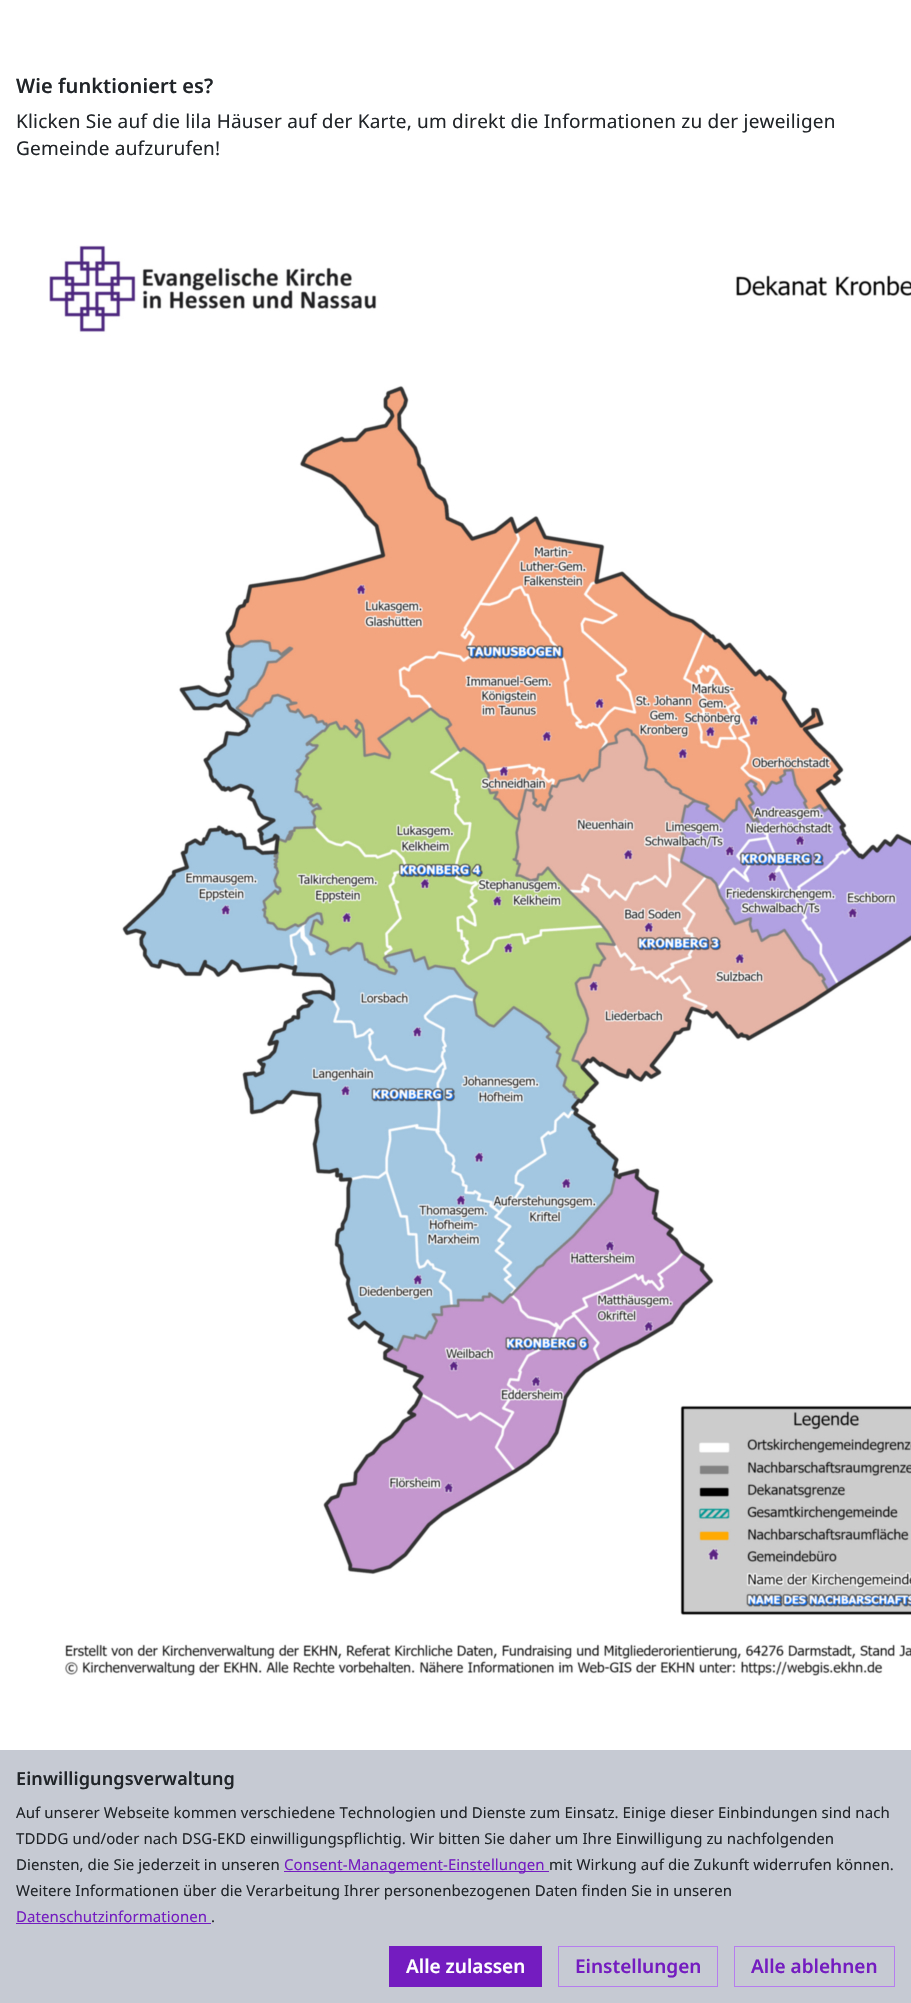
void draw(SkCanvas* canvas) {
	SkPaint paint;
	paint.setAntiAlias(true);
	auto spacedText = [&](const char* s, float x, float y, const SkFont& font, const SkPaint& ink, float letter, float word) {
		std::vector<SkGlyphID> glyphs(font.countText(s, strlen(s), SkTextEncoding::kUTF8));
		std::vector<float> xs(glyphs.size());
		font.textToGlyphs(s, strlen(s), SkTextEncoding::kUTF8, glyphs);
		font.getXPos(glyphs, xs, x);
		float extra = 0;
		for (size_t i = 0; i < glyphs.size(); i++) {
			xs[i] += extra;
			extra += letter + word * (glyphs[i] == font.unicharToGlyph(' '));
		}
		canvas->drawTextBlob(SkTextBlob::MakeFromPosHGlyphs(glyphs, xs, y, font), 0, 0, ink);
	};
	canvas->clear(0xffffffff);
	SkFont f1(fontMgr->matchFamilyStyle("Noto Sans", SkFontStyle(600, SkFontStyle::kNormal_Width, SkFontStyle::kUpright_Slant)), 20);
	f1.setSubpixel(true);
	paint.setColor(0xff212529);
	spacedText("Wie funktioniert es?", 16, 93, f1, paint, 0.1, 0);
	SkFont f2(fontMgr->matchFamilyStyle("Noto Sans", SkFontStyle::Normal()), 19);
	f2.setSubpixel(true);
	spacedText("Klicken Sie auf die lila Häuser auf der Karte, um direkt die Informationen zu der jeweiligen", 16, 128, f2, paint, 0.2, 0);
	spacedText("Gemeinde aufzurufen!", 16, 155, f2, paint, 0.2, 0);
	canvas->drawImageRect(SkImages::DeferredFromEncodedData(SkData::MakeFromFileName("img1.png")), SkRect::MakeXYWH(49, 245, 862, 1431), SkSamplingOptions());
	paint.setColor(0xffc6cad3);
	canvas->drawRect(SkRect::MakeXYWH(0, 1750, 911, 253), paint);
	SkFont f3(fontMgr->matchFamilyStyle("Noto Sans", SkFontStyle(600, SkFontStyle::kNormal_Width, SkFontStyle::kUpright_Slant)), 18);
	f3.setSubpixel(true);
	paint.setColor(0xff212529);
	spacedText("Einwilligungsverwaltung", 16, 1785, f3, paint, 0.1, 0);
	SkFont f4(fontMgr->matchFamilyStyle("Noto Sans", SkFontStyle::Normal()), 15);
	f4.setSubpixel(true);
	spacedText("Auf unserer Webseite kommen verschiedene Technologien und Dienste zum Einsatz. Einige dieser Einbindungen sind nach", 16, 1818, f4, paint, 0.08, 0);
	spacedText("TDDDG und/oder nach DSG-EKD einwilligungspflichtig. Wir bitten Sie daher um Ihre Einwilligung zu nachfolgenden", 16, 1844, f4, paint, 0.08, 0);
	spacedText("Diensten, die Sie jederzeit in unseren", 16, 1870, f4, paint, 0.08, 0);
	paint.setColor(0xff741cc0);
	canvas->drawRect(SkRect::MakeXYWH(284, 1871, 265, 1), paint);
	spacedText("Consent-Management-Einstellungen", 284, 1870, f4, paint, 0.08, 0);
	paint.setColor(0xff212529);
	spacedText("mit Wirkung auf die Zukunft widerrufen können.", 549, 1870, f4, paint, 0.08, 0);
	spacedText("Weitere Informationen über die Verarbeitung Ihrer personenbezogenen Daten finden Sie in unseren", 16, 1896, f4, paint, 0.08, 0);
	paint.setColor(0xff741cc0);
	spacedText("Datenschutzinformationen", 16, 1922, f4, paint, 0.08, 0);
	canvas->drawRect(SkRect::MakeXYWH(16, 1923, 195, 1), paint);
	paint.setColor(0xff212529);
	spacedText(".", 211, 1922, f4, paint, 0.08, 0);
	paint.setColor(0xff741cc0);
	canvas->drawRect(SkRect::MakeXYWH(389, 1946, 153, 41), paint);
	SkFont f5(fontMgr->matchFamilyStyle("Noto Sans", SkFontStyle(600, SkFontStyle::kNormal_Width, SkFontStyle::kUpright_Slant)), 19);
	f5.setSubpixel(true);
	paint.setColor(0xffffffff);
	canvas->drawString("Alle zulassen", 406, 1973, f5, paint);
	paint.setStroke(true);
	paint.setStrokeWidth(1);
	paint.setColor(0xffb67def);
	canvas->drawRect(SkRect::MakeXYWH(558.5, 1946.5, 159, 40), paint);
	paint.setStroke(false);
	paint.setColor(0xff741cc0);
	canvas->drawString("Einstellungen", 575, 1973, f5, paint);
	paint.setStroke(true);
	paint.setColor(0xffb67def);
	canvas->drawRect(SkRect::MakeXYWH(734.5, 1946.5, 160, 40), paint);
	paint.setStroke(false);
	paint.setColor(0xff741cc0);
	canvas->drawString("Alle ablehnen", 751, 1973, f5, paint);
}
